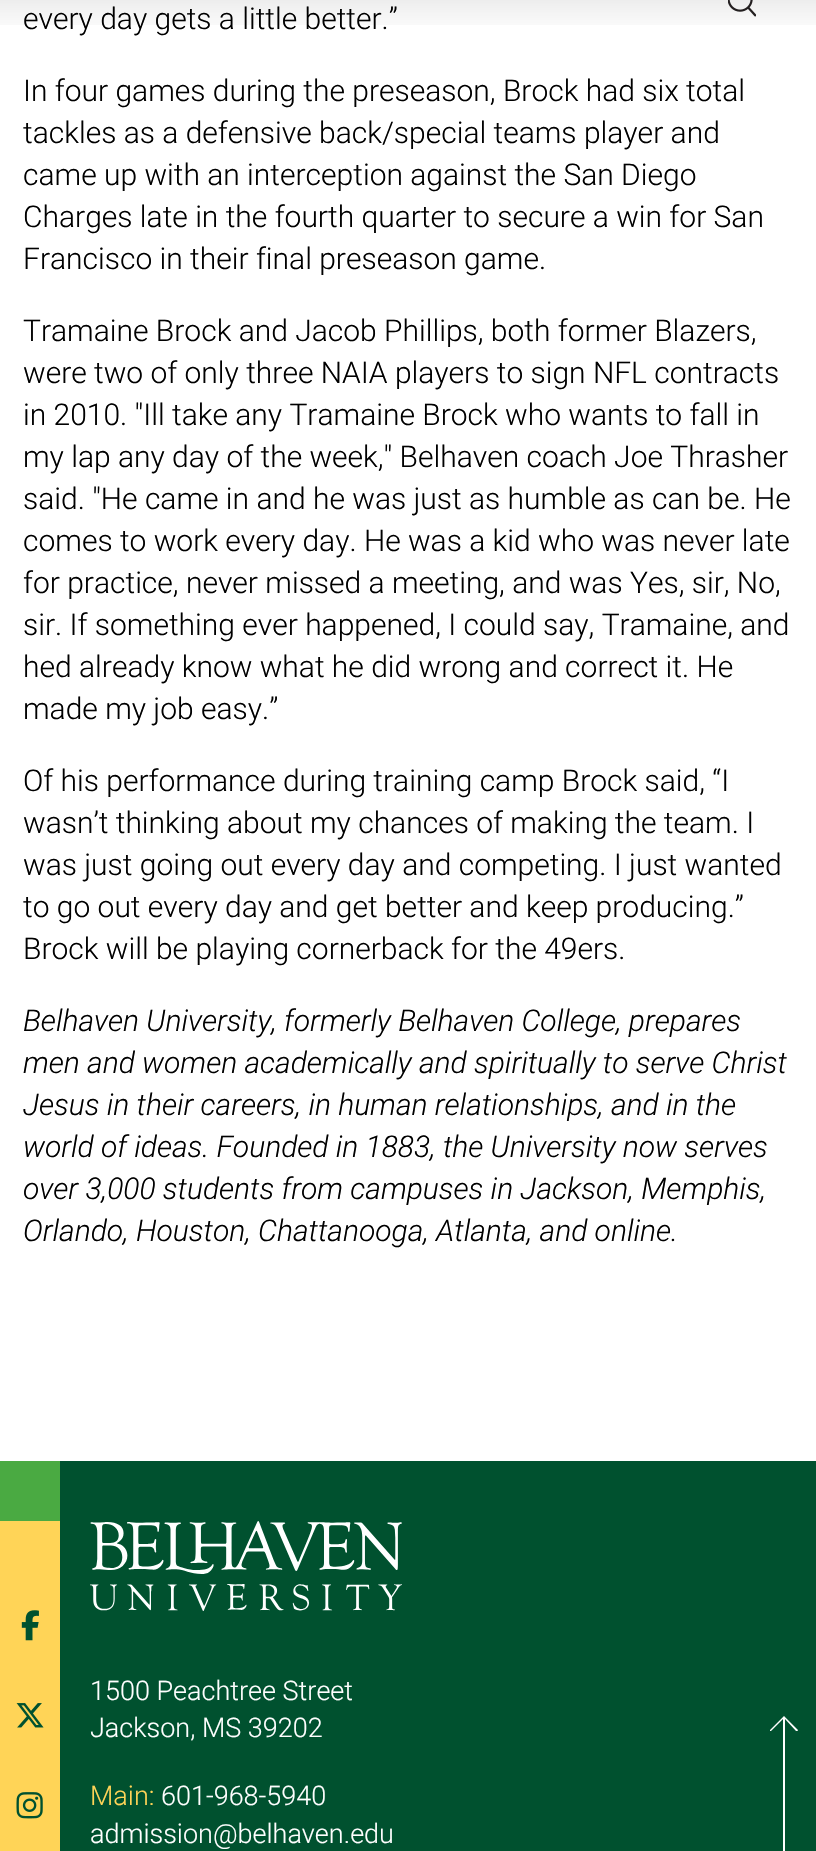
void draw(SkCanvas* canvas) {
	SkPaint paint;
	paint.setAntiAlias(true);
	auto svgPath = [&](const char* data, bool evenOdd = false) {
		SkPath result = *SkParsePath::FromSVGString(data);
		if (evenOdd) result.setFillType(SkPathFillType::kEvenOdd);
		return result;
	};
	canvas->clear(0xff00512f);
	paint.setColor(0xffffffff);
	canvas->drawRect(SkRect::MakeXYWH(0, 0, 816, 1461), paint);
	SkFont f1(fontMgr->matchFamilyStyle("Roboto", SkFontStyle(300, SkFontStyle::kNormal_Width, SkFontStyle::kUpright_Slant)), 30);
	f1.setSubpixel(true);
	paint.setColor(0xff000000);
	canvas->drawString("every day gets a little better.”", 23, 29, f1, paint);
	{
		const SkColor colors[] = {0xff000000, 0xbd000000, 0x8a000000, 0x61000000, 0x47000000, 0x30000000, 0x1f000000, 0x12000000, 0x0a000000, 0x05000000, 0x03000000, 0x00000000, 0x00000000};
		const float stops[] = {0, 0.19, 0.34, 0.47, 0.56, 0.65, 0.73, 0.8, 0.86, 0.91, 0.95, 0.98, 1};
		const SkPoint ends[] = {{408, -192}, {408, 48}};
		paint.setShader(SkGradientShader::MakeLinear(ends, colors, stops, 13, SkTileMode::kClamp));
		paint.setAlpha(255);
	}
	canvas->drawRect(SkRect::MakeXYWH(0, 0, 816, 25), paint);
	canvas->drawImageRect(SkImages::DeferredFromEncodedData(SkData::MakeFromFileName("img1.png")), SkRect::MakeXYWH(728, 0, 28, 17), SkSamplingOptions());
	paint.setShader(nullptr);
	paint.setColor(0xff000000);
	canvas->drawString("In four games during the preseason, Brock had six total", 23, 101, f1, paint);
	canvas->drawString("tackles as a defensive back/special teams player and", 23, 143, f1, paint);
	canvas->drawString("came up with an interception against the San Diego", 23, 185, f1, paint);
	canvas->drawString("Charges late in the fourth quarter to secure a win for San", 23, 227, f1, paint);
	canvas->drawString("Francisco in their final preseason game.", 23, 269, f1, paint);
	canvas->drawString("Tramaine Brock and Jacob Phillips, both former Blazers,", 23, 341, f1, paint);
	canvas->drawString("were two of only three NAIA players to sign NFL contracts", 23, 383, f1, paint);
	canvas->drawString("in 2010. \"Ill take any Tramaine Brock who wants to fall in", 23, 425, f1, paint);
	canvas->drawString("my lap any day of the week,\" Belhaven coach Joe Thrasher", 23, 467, f1, paint);
	canvas->drawString("said. \"He came in and he was just as humble as can be. He", 23, 509, f1, paint);
	canvas->drawString("comes to work every day. He was a kid who was never late", 23, 551, f1, paint);
	canvas->drawString("for practice, never missed a meeting, and was Yes, sir, No,", 23, 593, f1, paint);
	canvas->drawString("sir. If something ever happened, I could say, Tramaine, and", 23, 635, f1, paint);
	canvas->drawString("hed already know what he did wrong and correct it. He", 23, 677, f1, paint);
	canvas->drawString("made my job easy.”", 23, 719, f1, paint);
	canvas->drawString("Of his performance during training camp Brock said, “I", 23, 791, f1, paint);
	canvas->drawString("wasn’t thinking about my chances of making the team. I", 23, 833, f1, paint);
	canvas->drawString("was just going out every day and competing. I just wanted", 23, 875, f1, paint);
	canvas->drawString("to go out every day and get better and keep producing.”", 23, 917, f1, paint);
	canvas->drawString("Brock will be playing cornerback for the 49ers.", 23, 959, f1, paint);
	SkFont f2(fontMgr->matchFamilyStyle("Roboto", SkFontStyle(300, SkFontStyle::kNormal_Width, SkFontStyle::kItalic_Slant)), 30);
	f2.setSubpixel(true);
	canvas->drawString("Belhaven University, formerly Belhaven College, prepares", 23, 1031, f2, paint);
	canvas->drawString("men and women academically and spiritually to serve Christ", 23, 1073, f2, paint);
	canvas->drawString("Jesus in their careers, in human relationships, and in the", 23, 1115, f2, paint);
	canvas->drawString("world of ideas. Founded in 1883, the University now serves", 23, 1157, f2, paint);
	canvas->drawString("over 3,000 students from campuses in Jackson, Memphis,", 23, 1199, f2, paint);
	canvas->drawString("Orlando, Houston, Chattanooga, Atlanta, and online.", 23, 1241, f2, paint);
	paint.setColor(0xff4aaa42);
	canvas->drawRect(SkRect::MakeXYWH(0, 1461, 60, 60), paint);
	paint.setColor(0xffffd457);
	canvas->drawRect(SkRect::MakeXYWH(0, 1521, 60, 330), paint);
	canvas->drawImageRect(SkImages::DeferredFromEncodedData(SkData::MakeFromFileName("img2.png")), SkRect::MakeXYWH(21, 1610, 18, 31), SkSamplingOptions());
	canvas->drawImageRect(SkImages::DeferredFromEncodedData(SkData::MakeFromFileName("img3.png")), SkRect::MakeXYWH(16, 1703, 28, 25), SkSamplingOptions());
	canvas->drawImageRect(SkImages::DeferredFromEncodedData(SkData::MakeFromFileName("img4.png")), SkRect::MakeXYWH(16, 1792, 27, 27), SkSamplingOptions());
	canvas->drawImageRect(SkImages::DeferredFromEncodedData(SkData::MakeFromFileName("img5.png")), SkRect::MakeXYWH(90, 1521, 312, 90), SkSamplingOptions());
	SkFont f3(fontMgr->matchFamilyStyle("Roboto", SkFontStyle(300, SkFontStyle::kNormal_Width, SkFontStyle::kUpright_Slant)), 27);
	f3.setSubpixel(true);
	paint.setColor(0xffffffff);
	canvas->drawString("1500 Peachtree Street", 90, 1700, f3, paint);
	canvas->drawString("Jackson, MS 39202", 90, 1737, f3, paint);
	paint.setColor(0xffffd457);
	canvas->drawString("Main:", 90, 1805, f3, paint);
	paint.setColor(0xffffffff);
	canvas->drawString("601-968-5940", 161, 1805, f3, paint);
	canvas->drawString("admission@belhaven.edu", 90, 1843, f3, paint);
	canvas->drawPath(svgPath("M783 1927V1719L771 1731H770V1730L784 1716L798 1730C798 1731 797 1731 796 1731L785 1719V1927C785 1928 783 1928 783 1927Z"), paint);
}
